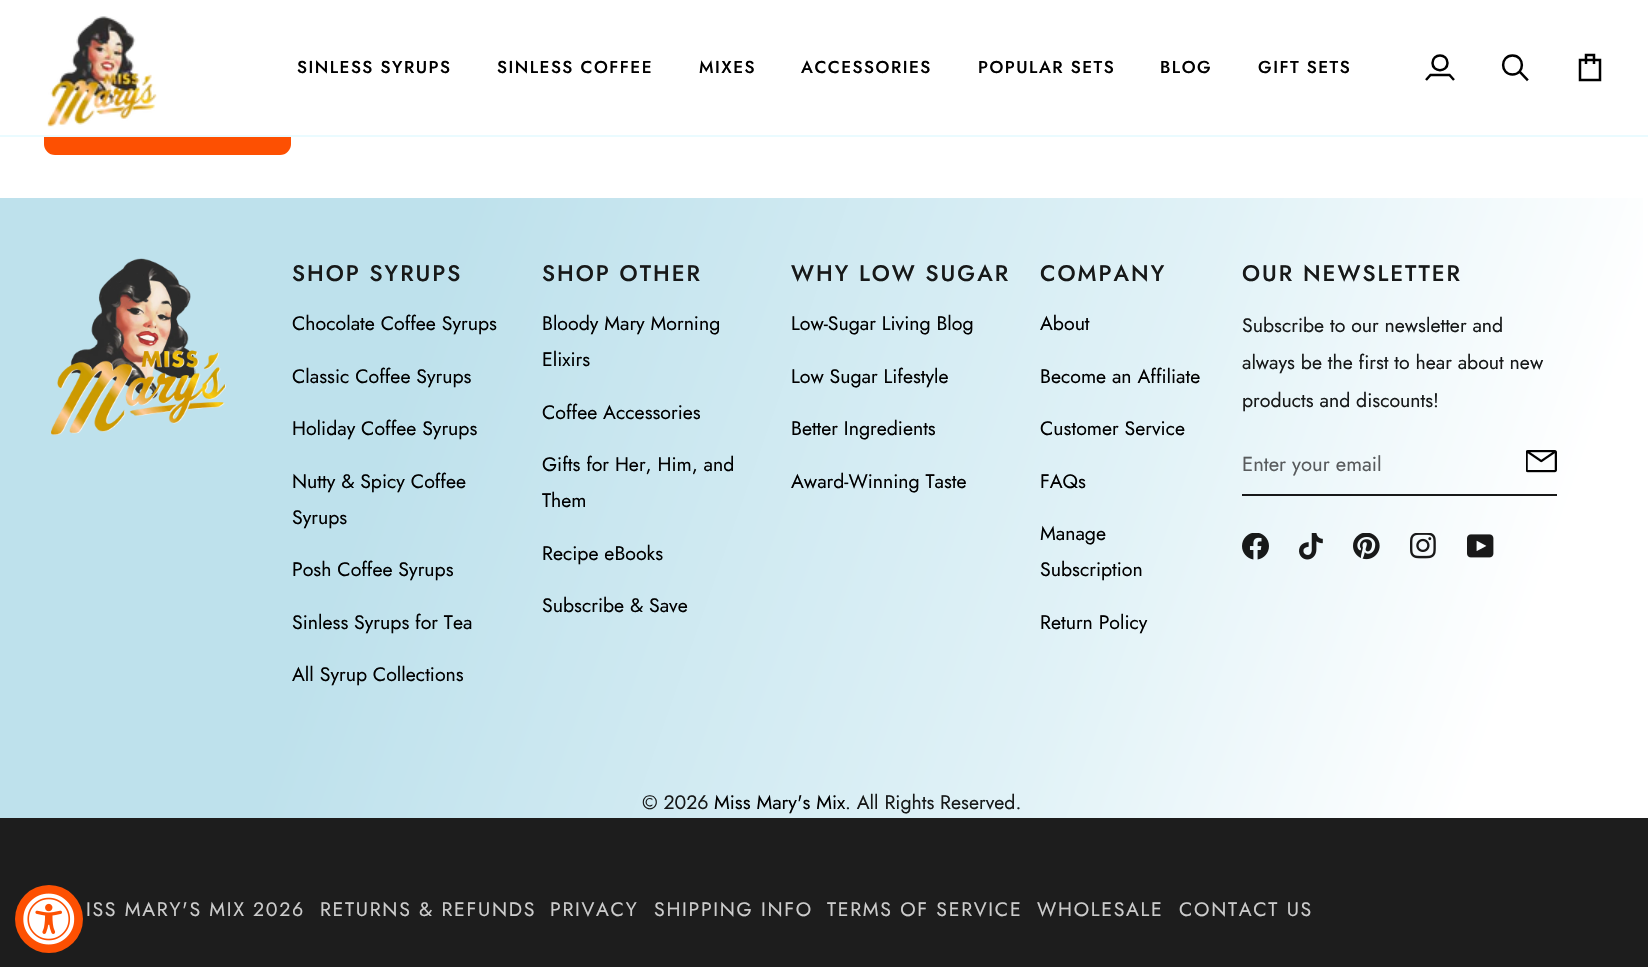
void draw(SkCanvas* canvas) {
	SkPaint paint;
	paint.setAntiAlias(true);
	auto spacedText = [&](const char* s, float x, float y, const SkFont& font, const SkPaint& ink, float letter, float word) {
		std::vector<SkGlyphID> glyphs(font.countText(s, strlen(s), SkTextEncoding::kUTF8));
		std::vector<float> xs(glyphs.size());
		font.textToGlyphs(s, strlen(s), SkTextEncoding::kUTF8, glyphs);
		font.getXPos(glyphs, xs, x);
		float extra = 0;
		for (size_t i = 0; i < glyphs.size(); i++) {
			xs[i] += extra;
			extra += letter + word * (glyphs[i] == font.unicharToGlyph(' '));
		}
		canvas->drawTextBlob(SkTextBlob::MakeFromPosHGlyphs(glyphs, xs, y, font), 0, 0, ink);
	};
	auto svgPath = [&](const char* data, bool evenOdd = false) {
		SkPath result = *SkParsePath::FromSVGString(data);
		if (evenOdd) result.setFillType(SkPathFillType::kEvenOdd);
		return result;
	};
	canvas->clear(0xffffffff);
	paint.setColor(0xfffd5002);
	canvas->drawRoundRect(SkRect::MakeXYWH(44, 90, 247, 65), 11, 11, paint);
	paint.setColor(0xffeafbff);
	canvas->drawRect(SkRect::MakeXYWH(0, 135, 1648, 2), paint);
	paint.setColor(0xffffffff);
	canvas->drawRect(SkRect::MakeXYWH(44, 90, 247, 45), paint);
	canvas->drawImageRect(SkImages::DeferredFromEncodedData(SkData::MakeFromFileName("img1.png")), SkRect::MakeXYWH(47, 16, 110, 111), SkSamplingOptions());
	SkFont f1(fontMgr->matchFamilyStyle("Jost", SkFontStyle(500, SkFontStyle::kNormal_Width, SkFontStyle::kUpright_Slant)), 17.25);
	f1.setSubpixel(true);
	paint.setColor(0xff000000);
	spacedText("SINLESS SYRUPS", 297, 73, f1, paint, 1.5, 0);
	spacedText("SINLESS COFFEE", 497, 73, f1, paint, 1.5, 0);
	spacedText("MIXES", 699, 73, f1, paint, 1.5, 0);
	spacedText("ACCESSORIES", 801, 73, f1, paint, 1.5, 0);
	spacedText("POPULAR SETS", 978, 73, f1, paint, 1.5, 0);
	spacedText("BLOG", 1160, 73, f1, paint, 1.5, 0);
	spacedText("GIFT SETS", 1258, 73, f1, paint, 1.5, 0);
	paint.setStroke(true);
	paint.setStrokeWidth(2.5);
	canvas->drawPath(svgPath("M1426 80L1430.5 75H1449.5L1454 80M1447.5 63C1447.5 72.5 1432.5 72.5 1432.5 63C1432.5 53 1447.5 53 1447.5 63Z"), paint);
	paint.setStrokeCap(SkPaint::kSquare_Cap);
	canvas->drawPath(svgPath("M1512.5 74.5C1525 74.5 1525 55.5 1512.5 55.5C1500 55.5 1500 74.5 1512.5 74.5ZM1527 79.5L1520 72"), paint);
	paint.setStrokeCap(SkPaint::kButt_Cap);
	canvas->drawPath(svgPath("M1580 60H1600V80H1580ZM1586 64V55H1594V64"), paint);
	paint.setStroke(false);
	{
		const SkColor colors[] = {0xffbee1ec, 0xffe1f2f7, 0xffffffff};
		const float stops[] = {0.25, 0.66, 0.9};
		const SkPoint ends[] = {{-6.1, 215}, {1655, 800}};
		paint.setShader(SkGradientShader::MakeLinear(ends, colors, stops, 3, SkTileMode::kClamp));
		paint.setAlpha(255);
	}
	canvas->drawRect(SkRect::MakeXYWH(0, 198, 1643, 620), paint);
	{
		const SkColor colors[] = {0xff131618, 0xff161819, 0xff191919};
		const float stops[] = {0.25, 0.66, 0.9};
		const SkPoint ends[] = {{-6.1, 215}, {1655, 800}};
		paint.setShader(SkGradientShader::MakeLinear(ends, colors, stops, 3, SkTileMode::kClamp));
		paint.setAlpha(255);
	}
	canvas->drawRect(SkRect::MakeXYWH(1242, 494, 315, 2), paint);
	canvas->drawImageRect(SkImages::DeferredFromEncodedData(SkData::MakeFromFileName("img2.png")), SkRect::MakeXYWH(51, 258, 175, 177), SkSamplingOptions());
	SkFont f2(fontMgr->matchFamilyStyle("Jost", SkFontStyle(500, SkFontStyle::kNormal_Width, SkFontStyle::kUpright_Slant)), 22.5);
	f2.setSubpixel(true);
	paint.setShader(nullptr);
	paint.setColor(0xff171919);
	spacedText("SHOP SYRUPS", 292, 281, f2, paint, 2, 0);
	SkFont f3(fontMgr->matchFamilyStyle("Jost", SkFontStyle::Normal()), 19.5);
	f3.setSubpixel(true);
	paint.setColor(0xff000000);
	canvas->drawString("Chocolate Coffee Syrups", 292, 330, f3, paint);
	canvas->drawString("Classic Coffee Syrups", 292, 383, f3, paint);
	canvas->drawString("Holiday Coffee Syrups", 292, 435, f3, paint);
	canvas->drawString("Nutty & Spicy Coffee", 292, 488, f3, paint);
	canvas->drawString("Syrups", 292, 524, f3, paint);
	canvas->drawString("Posh Coffee Syrups", 292, 576, f3, paint);
	canvas->drawString("Sinless Syrups for Tea", 292, 629, f3, paint);
	canvas->drawString("All Syrup Collections", 292, 681, f3, paint);
	paint.setColor(0xff171919);
	spacedText("SHOP OTHER", 542, 281, f2, paint, 2, 0);
	paint.setColor(0xff000000);
	canvas->drawString("Bloody Mary Morning", 542, 330, f3, paint);
	canvas->drawString("Elixirs", 542, 366, f3, paint);
	canvas->drawString("Coffee Accessories", 542, 419, f3, paint);
	canvas->drawString("Gifts for Her, Him, and", 542, 471, f3, paint);
	canvas->drawString("Them", 542, 507, f3, paint);
	canvas->drawString("Recipe eBooks", 542, 560, f3, paint);
	canvas->drawString("Subscribe & Save", 542, 612, f3, paint);
	paint.setColor(0xff171919);
	spacedText("WHY LOW SUGAR", 791, 281, f2, paint, 2, 0);
	paint.setColor(0xff000000);
	canvas->drawString("Low-Sugar Living Blog", 791, 330, f3, paint);
	canvas->drawString("Low Sugar Lifestyle", 791, 383, f3, paint);
	canvas->drawString("Better Ingredients", 791, 435, f3, paint);
	canvas->drawString("Award-Winning Taste", 791, 488, f3, paint);
	paint.setColor(0xff171919);
	spacedText("COMPANY", 1040, 281, f2, paint, 2, 0);
	paint.setColor(0xff000000);
	canvas->drawString("About", 1040, 330, f3, paint);
	canvas->drawString("Become an Affiliate", 1040, 383, f3, paint);
	canvas->drawString("Customer Service", 1040, 435, f3, paint);
	canvas->drawString("FAQs", 1040, 488, f3, paint);
	canvas->drawString("Manage", 1040, 540, f3, paint);
	canvas->drawString("Subscription", 1040, 576, f3, paint);
	canvas->drawString("Return Policy", 1040, 629, f3, paint);
	paint.setColor(0xff171919);
	spacedText("OUR NEWSLETTER", 1242, 281, f2, paint, 2, 0);
	canvas->drawString("Subscribe to our newsletter and", 1242, 332, f3, paint);
	canvas->drawString("always be the first to hear about new", 1242, 369, f3, paint);
	canvas->drawString("products and discounts!", 1242, 407, f3, paint);
	SkFont f4(fontMgr->matchFamilyStyle("Jost", SkFontStyle::Normal()), 20.25);
	f4.setSubpixel(true);
	paint.setColor(0xff585b5d);
	canvas->drawString("Enter your email", 1242, 471, f4, paint);
	canvas->drawImageRect(SkImages::DeferredFromEncodedData(SkData::MakeFromFileName("img3.png")), SkRect::MakeXYWH(1526, 450, 31, 23), SkSamplingOptions());
	canvas->drawImageRect(SkImages::DeferredFromEncodedData(SkData::MakeFromFileName("img4.png")), SkRect::MakeXYWH(1242, 533, 27, 27), SkSamplingOptions());
	canvas->drawImageRect(SkImages::DeferredFromEncodedData(SkData::MakeFromFileName("img5.png")), SkRect::MakeXYWH(1299, 533, 24, 27), SkSamplingOptions());
	canvas->drawImageRect(SkImages::DeferredFromEncodedData(SkData::MakeFromFileName("img6.png")), SkRect::MakeXYWH(1353, 533, 27, 27), SkSamplingOptions());
	canvas->drawImageRect(SkImages::DeferredFromEncodedData(SkData::MakeFromFileName("img7.png")), SkRect::MakeXYWH(1410, 533, 26, 26), SkSamplingOptions());
	canvas->drawImageRect(SkImages::DeferredFromEncodedData(SkData::MakeFromFileName("img8.png")), SkRect::MakeXYWH(1467, 534, 27, 24), SkSamplingOptions());
	paint.setColor(0xff171919);
	canvas->drawString("© 2026", 642, 809, f3, paint);
	paint.setColor(0xff000000);
	canvas->drawString("Miss Mary's Mix", 714, 809, f3, paint);
	paint.setColor(0xff171919);
	canvas->drawString(". All Rights Reserved.", 845, 809, f3, paint);
	paint.setColor(0xff1d1d1d);
	canvas->drawRect(SkRect::MakeXYWH(0, 818, 1648, 149), paint);
	paint.setColor(0xfffd5002);
	canvas->drawCircle(49, 919, 34, paint);
	canvas->drawImageRect(SkImages::DeferredFromEncodedData(SkData::MakeFromFileName("img9.png")), SkRect::MakeXYWH(23, 893, 52, 52), SkSamplingOptions());
	paint.setColor(0xffcccccc);
	spacedText("ISS MARY'S MIX", 86, 916, f3, paint, 1.7, 0);
	spacedText("2026", 253, 916, f3, paint, 1.7, 0);
	spacedText("RETURNS & REFUNDS", 320, 916, f3, paint, 1.7, 0);
	spacedText("PRIVACY", 550, 916, f3, paint, 1.7, 0);
	spacedText("SHIPPING INFO", 654, 916, f3, paint, 1.7, 0);
	spacedText("TERMS OF SERVICE", 827, 916, f3, paint, 1.7, 0);
	spacedText("WHOLESALE", 1037, 916, f3, paint, 1.7, 0);
	spacedText("CONTACT US", 1179, 916, f3, paint, 1.7, 0);
}
